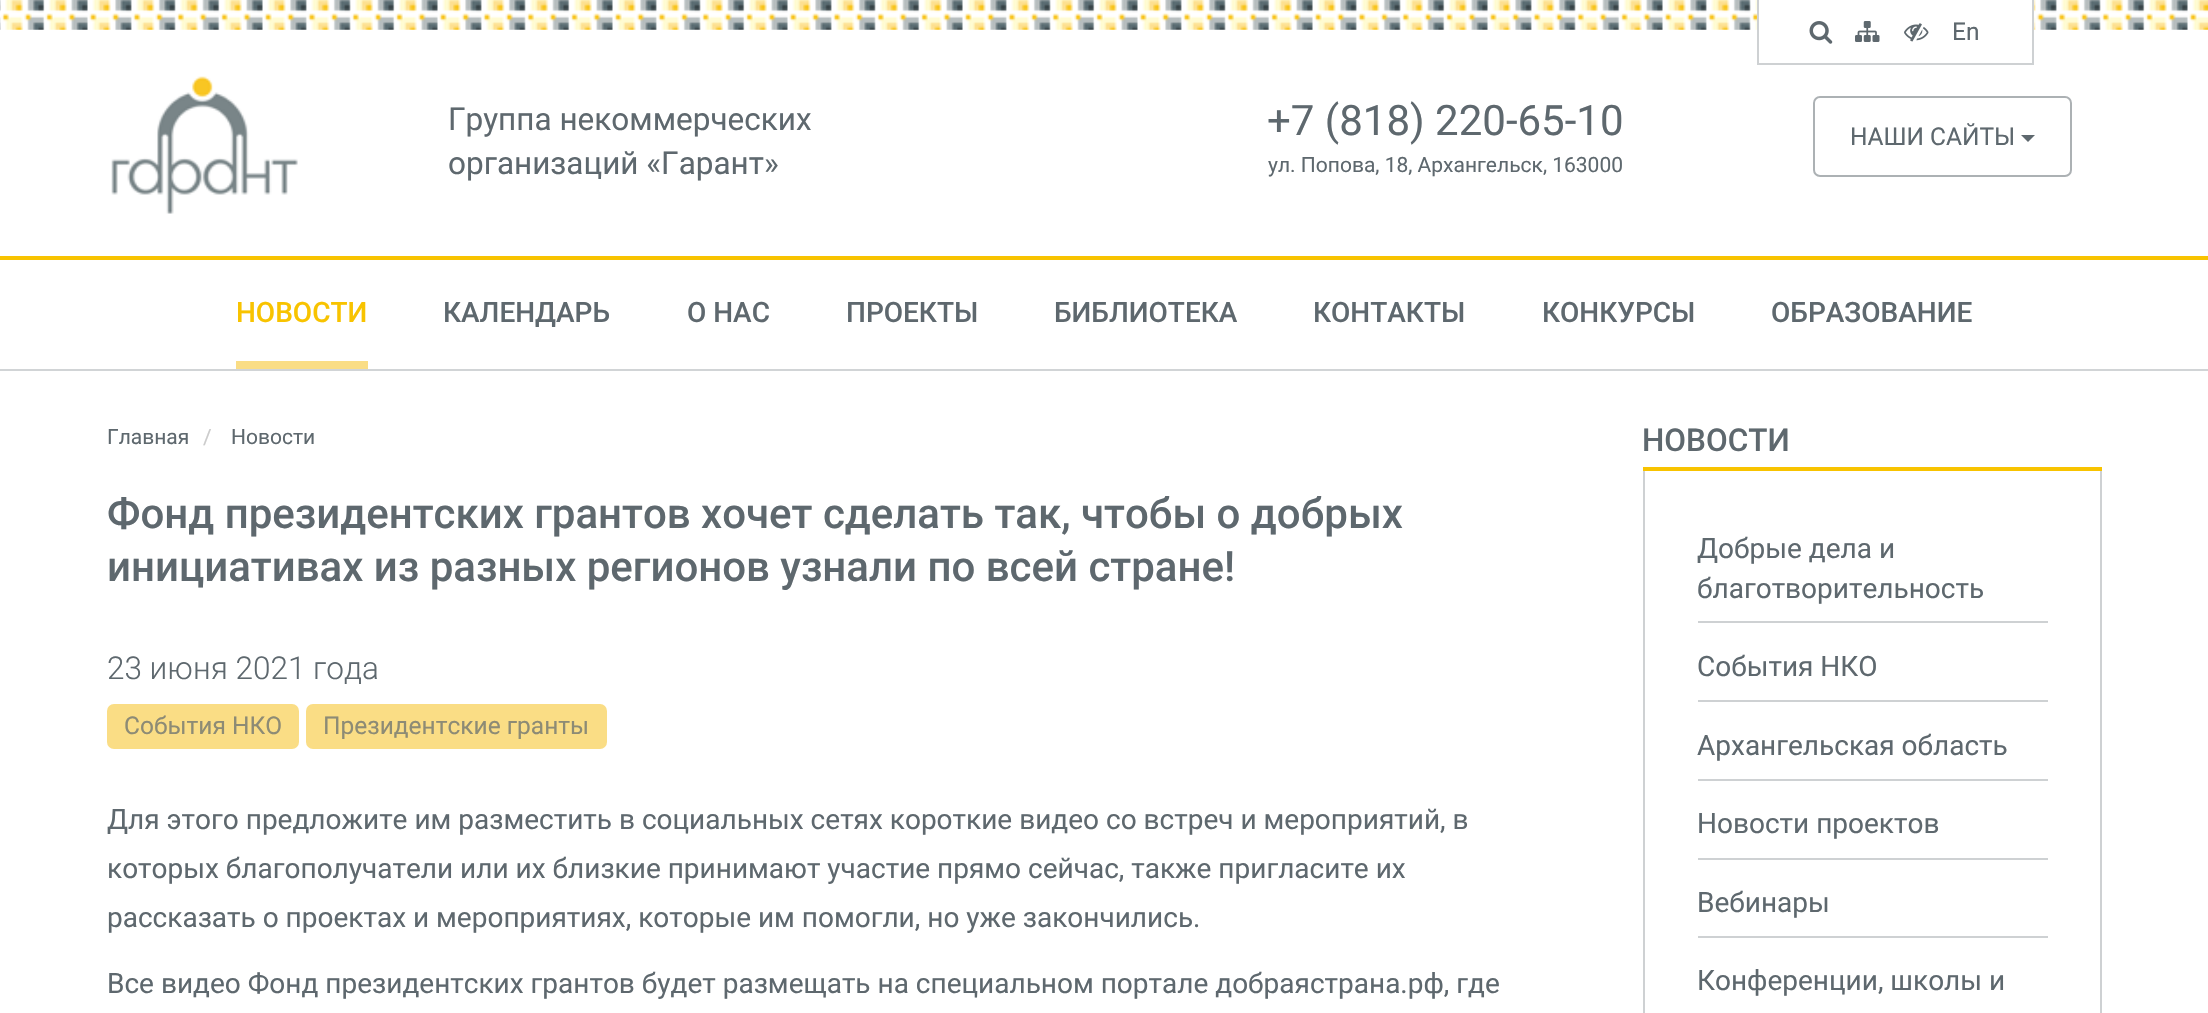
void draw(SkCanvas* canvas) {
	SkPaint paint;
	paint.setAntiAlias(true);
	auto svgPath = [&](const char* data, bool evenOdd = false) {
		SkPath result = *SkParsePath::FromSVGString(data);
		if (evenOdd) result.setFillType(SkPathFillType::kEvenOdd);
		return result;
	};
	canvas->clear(0xffffffff);
	canvas->drawImageRect(SkImages::DeferredFromEncodedData(SkData::MakeFromFileName("img4.png")), SkRect::MakeXYWH(0, 0, 2208, 30), SkSamplingOptions());
	paint.setColor(0xffffffff);
	canvas->drawRect(SkRect::MakeXYWH(1759, 0, 273, 30), paint);
	paint.setColor(0xffced1d3);
	canvas->drawRect(SkRect::MakeXYWH(2032, 0, 2, 65), paint);
	canvas->drawRect(SkRect::MakeXYWH(1757, 63, 277, 2), paint);
	canvas->drawRect(SkRect::MakeXYWH(1757, 0, 2, 65), paint);
	canvas->drawImageRect(SkImages::DeferredFromEncodedData(SkData::MakeFromFileName("img1.png")), SkRect::MakeXYWH(1809, 21, 24, 23), SkSamplingOptions());
	canvas->drawImageRect(SkImages::DeferredFromEncodedData(SkData::MakeFromFileName("img2.png")), SkRect::MakeXYWH(1855, 21, 25, 21), SkSamplingOptions());
	canvas->drawImageRect(SkImages::DeferredFromEncodedData(SkData::MakeFromFileName("img3.png")), SkRect::MakeXYWH(1904, 23, 25, 19), SkSamplingOptions());
	SkFont f1(fontMgr->matchFamilyStyle("Roboto", SkFontStyle::Normal()), 24.5);
	f1.setSubpixel(true);
	paint.setColor(0xff5e686e);
	canvas->drawString("En", 1952, 40, f1, paint);
	paint.setColor(0xfff8c300);
	canvas->drawRect(SkRect::MakeXYWH(0, 256, 2208, 4), paint);
	canvas->drawImageRect(SkImages::DeferredFromEncodedData(SkData::MakeFromFileName("img5.png")), SkRect::MakeXYWH(111, 76, 187, 138), SkSamplingOptions());
	SkFont f2(fontMgr->matchFamilyStyle("Roboto", SkFontStyle::Normal()), 31.5);
	f2.setSubpixel(true);
	paint.setColor(0xff5e686e);
	canvas->drawString("Группа некоммерческих", 448, 130, f2, paint);
	canvas->drawString("организаций «Гарант»", 448, 174, f2, paint);
	SkFont f3(fontMgr->matchFamilyStyle("Roboto", SkFontStyle::Normal()), 42);
	f3.setSubpixel(true);
	canvas->drawString("+7 (818) 220-65-10", 1267, 135, f3, paint);
	SkFont f4(fontMgr->matchFamilyStyle("Roboto", SkFontStyle::Normal()), 21);
	f4.setSubpixel(true);
	canvas->drawString("ул. Попова, 18, Архангельск, 163000", 1268, 172, f4, paint);
	paint.setStroke(true);
	paint.setStrokeWidth(2);
	paint.setColor(0xffacb1b4);
	canvas->drawRoundRect(SkRect::MakeXYWH(1814, 97, 257, 79), 6, 6, paint);
	paint.setStroke(false);
	paint.setColor(0xff5e686e);
	canvas->drawString("НАШИ САЙТЫ", 1850, 145, f1, paint);
	canvas->drawPath(svgPath("M2021 135H2035L2028 142Z"), paint);
	paint.setColor(0xffd1d4d6);
	canvas->drawRect(SkRect::MakeXYWH(0, 369, 2208, 2), paint);
	paint.setColor(0xfffadd85);
	canvas->drawRect(SkRect::MakeXYWH(236, 361, 132, 8), paint);
	SkFont f5(fontMgr->matchFamilyStyle("Roboto", SkFontStyle(500, SkFontStyle::kNormal_Width, SkFontStyle::kUpright_Slant)), 28);
	f5.setSubpixel(true);
	paint.setColor(0xfff8c300);
	canvas->drawString("НОВОСТИ", 236, 322, f5, paint);
	paint.setColor(0xff5e686e);
	canvas->drawString("КАЛЕНДАРЬ", 443, 322, f5, paint);
	canvas->drawString("О НАС", 687, 322, f5, paint);
	canvas->drawString("ПРОЕКТЫ", 846, 322, f5, paint);
	canvas->drawString("БИБЛИОТЕКА", 1054, 322, f5, paint);
	canvas->drawString("КОНТАКТЫ", 1313, 322, f5, paint);
	canvas->drawString("КОНКУРСЫ", 1542, 322, f5, paint);
	canvas->drawString("ОБРАЗОВАНИЕ", 1771, 322, f5, paint);
	canvas->drawString("Главная", 107, 444, f4, paint);
	paint.setColor(0xffcccccc);
	canvas->drawString("/", 203, 444, f4, paint);
	paint.setColor(0xff5e686e);
	canvas->drawString("Новости", 231, 444, f4, paint);
	SkFont f6(fontMgr->matchFamilyStyle("Roboto", SkFontStyle(500, SkFontStyle::kNormal_Width, SkFontStyle::kUpright_Slant)), 42);
	f6.setSubpixel(true);
	canvas->drawString("Фонд президентских грантов хочет сделать так, чтобы о добрых", 107, 528, f6, paint);
	canvas->drawString("инициативах из разных регионов узнали по всей стране!", 107, 581, f6, paint);
	SkFont f7(fontMgr->matchFamilyStyle("Roboto", SkFontStyle(300, SkFontStyle::kNormal_Width, SkFontStyle::kUpright_Slant)), 31.5);
	f7.setSubpixel(true);
	canvas->drawString("23 июня 2021 года", 107, 679, f7, paint);
	paint.setColor(0xfffadd85);
	canvas->drawRoundRect(SkRect::MakeXYWH(107, 704, 192, 45), 7, 7, paint);
	paint.setColor(0xff8d8b75);
	canvas->drawString("События НКО", 124, 734, f1, paint);
	paint.setColor(0xfffadd85);
	canvas->drawRoundRect(SkRect::MakeXYWH(306, 704, 301, 45), 7, 7, paint);
	paint.setColor(0xff8d8b75);
	canvas->drawString("Президентские гранты", 323, 734, f1, paint);
	SkFont f8(fontMgr->matchFamilyStyle("Roboto", SkFontStyle::Normal()), 28);
	f8.setSubpixel(true);
	paint.setColor(0xff5e686e);
	canvas->drawString("Для этого предложите им разместить в социальных сетях короткие видео со встреч и мероприятий, в", 107, 829, f8, paint);
	canvas->drawString("которых благополучатели или их близкие принимают участие прямо сейчас, также пригласите их", 107, 878, f8, paint);
	canvas->drawString("рассказать о проектах и мероприятиях, которые им помогли, но уже закончились.", 107, 927, f8, paint);
	canvas->drawString("Все видео Фонд президентских грантов будет размещать на специальном портале добраястрана.рф, где", 107, 993, f8, paint);
	paint.setColor(0xfff8c300);
	canvas->drawRect(SkRect::MakeXYWH(1643, 467, 459, 4), paint);
	SkFont f9(fontMgr->matchFamilyStyle("Roboto", SkFontStyle(500, SkFontStyle::kNormal_Width, SkFontStyle::kUpright_Slant)), 31.5);
	f9.setSubpixel(true);
	paint.setColor(0xff5e686e);
	canvas->drawString("НОВОСТИ", 1642, 451, f9, paint);
	paint.setColor(0xffced1d3);
	canvas->drawRect(SkRect::MakeXYWH(2100, 471, 2, 542), paint);
	canvas->drawRect(SkRect::MakeXYWH(1643, 471, 2, 542), paint);
	canvas->drawRect(SkRect::MakeXYWH(1698, 621, 350, 2), paint);
	paint.setColor(0xff5e686e);
	canvas->drawString("Добрые дела и", 1697, 558, f8, paint);
	canvas->drawString("благотворительность", 1697, 598, f8, paint);
	paint.setColor(0xffced1d3);
	canvas->drawRect(SkRect::MakeXYWH(1698, 700, 350, 2), paint);
	paint.setColor(0xff5e686e);
	canvas->drawString("События НКО", 1697, 676, f8, paint);
	paint.setColor(0xffced1d3);
	canvas->drawRect(SkRect::MakeXYWH(1698, 779, 350, 2), paint);
	paint.setColor(0xff5e686e);
	canvas->drawString("Архангельская область", 1697, 755, f8, paint);
	paint.setColor(0xffced1d3);
	canvas->drawRect(SkRect::MakeXYWH(1698, 858, 350, 2), paint);
	paint.setColor(0xff5e686e);
	canvas->drawString("Новости проектов", 1697, 833, f8, paint);
	paint.setColor(0xffced1d3);
	canvas->drawRect(SkRect::MakeXYWH(1698, 936, 350, 2), paint);
	paint.setColor(0xff5e686e);
	canvas->drawString("Вебинары", 1697, 912, f8, paint);
	canvas->drawString("Конференции, школы и", 1697, 990, f8, paint);
}
